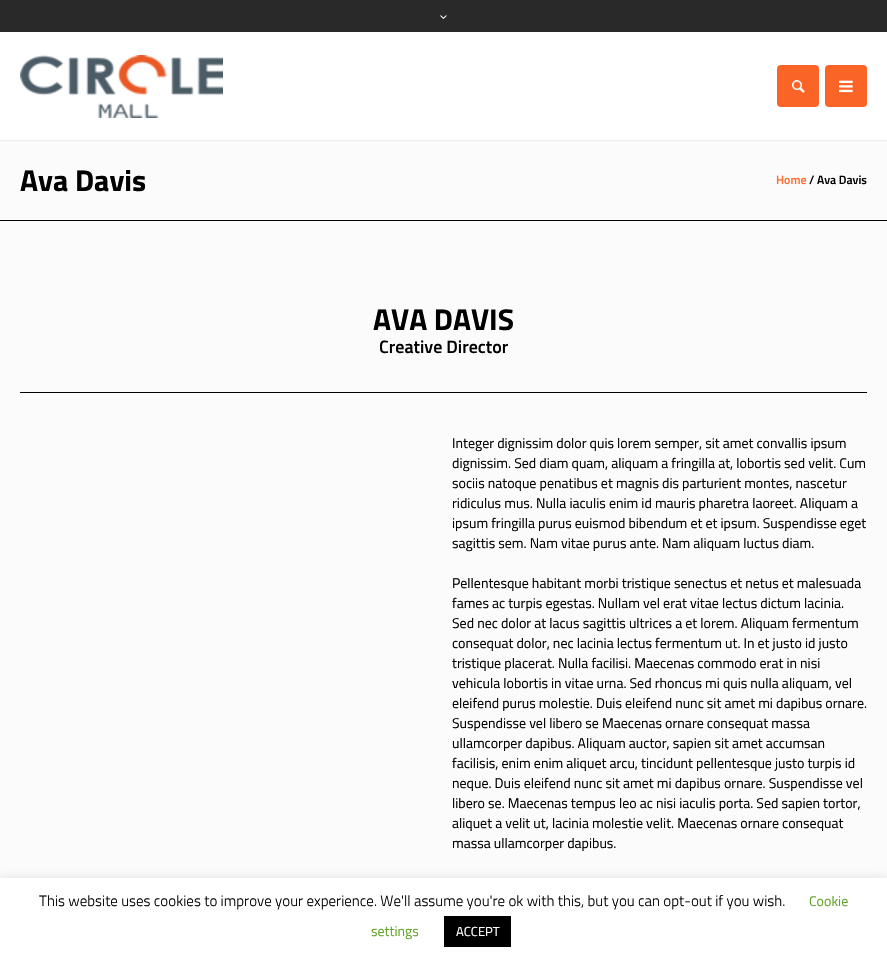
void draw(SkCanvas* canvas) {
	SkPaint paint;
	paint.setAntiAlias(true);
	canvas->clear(0xfffbfbfb);
	paint.setColor(0x0d000000);
	paint.setMaskFilter(SkMaskFilter::MakeBlur(kNormal_SkBlurStyle, 0.5));
	canvas->drawRect(SkRect::MakeXYWH(0, 1, 887, 140), paint);
	paint.setMaskFilter(nullptr);
	paint.setColor(0xff292929);
	canvas->drawRect(SkRect::MakeXYWH(0, 0, 887, 32), paint);
	canvas->drawImageRect(SkImages::DeferredFromEncodedData(SkData::MakeFromFileName("img1.png")), SkRect::MakeXYWH(440, 15, 7, 4), SkSamplingOptions());
	paint.setColor(0xffffffff);
	canvas->drawRect(SkRect::MakeXYWH(0, 32, 887, 108), paint);
	canvas->drawImageRect(SkImages::DeferredFromEncodedData(SkData::MakeFromFileName("img2.png")), SkRect::MakeXYWH(20, 55, 203, 63), SkSamplingOptions());
	paint.setColor(0xfffa6426);
	canvas->drawRoundRect(SkRect::MakeXYWH(777, 65, 42, 42), 4, 4, paint);
	canvas->drawImageRect(SkImages::DeferredFromEncodedData(SkData::MakeFromFileName("img3.png")), SkRect::MakeXYWH(792, 80, 13, 13), SkSamplingOptions());
	canvas->drawRoundRect(SkRect::MakeXYWH(825, 65, 42, 42), 4, 4, paint);
	canvas->drawImageRect(SkImages::DeferredFromEncodedData(SkData::MakeFromFileName("img4.png")), SkRect::MakeXYWH(839, 80, 14, 13), SkSamplingOptions());
	paint.setColor(0xfffefefe);
	canvas->drawRect(SkRect::MakeXYWH(0, 221, 887, 1), paint);
	paint.setColor(0xff000000);
	canvas->drawRect(SkRect::MakeXYWH(0, 220, 887, 1), paint);
	SkFont f1(fontMgr->matchFamilyStyle("Titillium Web", SkFontStyle::Bold()), 30);
	f1.setSubpixel(true);
	canvas->drawString("Ava Davis", 20, 191, f1, paint);
	SkFont f2(fontMgr->matchFamilyStyle("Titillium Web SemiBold", SkFontStyle(600, SkFontStyle::kNormal_Width, SkFontStyle::kUpright_Slant)), 12);
	f2.setSubpixel(true);
	paint.setColor(0xffff6c2f);
	canvas->drawString("Home", 776, 184, f2, paint);
	paint.setColor(0xff000000);
	canvas->drawString("/ Ava Davis", 809, 184, f2, paint);
	paint.setColor(0xfffefefe);
	canvas->drawRect(SkRect::MakeXYWH(20, 393, 847, 1), paint);
	paint.setColor(0xff000000);
	canvas->drawRect(SkRect::MakeXYWH(20, 392, 847, 1), paint);
	canvas->drawString("AVA DAVIS", 373, 330, f1, paint);
	SkFont f3(fontMgr->matchFamilyStyle("Titillium Web SemiBold", SkFontStyle(600, SkFontStyle::kNormal_Width, SkFontStyle::kUpright_Slant)), 18);
	f3.setSubpixel(true);
	canvas->drawString("Creative Director", 379, 353, f3, paint);
	SkFont f4(fontMgr->matchFamilyStyle("Titillium Web", SkFontStyle::Normal()), 14);
	f4.setSubpixel(true);
	canvas->drawString("Integer dignissim dolor quis lorem semper, sit amet convallis ipsum", 452, 448, f4, paint);
	canvas->drawString("dignissim. Sed diam quam, aliquam a fringilla at, lobortis sed velit. Cum", 452, 468, f4, paint);
	canvas->drawString("sociis natoque penatibus et magnis dis parturient montes, nascetur", 452, 488, f4, paint);
	canvas->drawString("ridiculus mus. Nulla iaculis enim id mauris pharetra laoreet. Aliquam a", 452, 508, f4, paint);
	canvas->drawString("ipsum fringilla purus euismod bibendum et et ipsum. Suspendisse eget", 452, 528, f4, paint);
	canvas->drawString("sagittis sem. Nam vitae purus ante. Nam aliquam luctus diam.", 452, 548, f4, paint);
	canvas->drawString("Pellentesque habitant morbi tristique senectus et netus et malesuada", 452, 588, f4, paint);
	canvas->drawString("fames ac turpis egestas. Nullam vel erat vitae lectus dictum lacinia.", 452, 608, f4, paint);
	canvas->drawString("Sed nec dolor at lacus sagittis ultrices a et lorem. Aliquam fermentum", 452, 628, f4, paint);
	canvas->drawString("consequat dolor, nec lacinia lectus fermentum ut. In et justo id justo", 452, 648, f4, paint);
	canvas->drawString("tristique placerat. Nulla facilisi. Maecenas commodo erat in nisi", 452, 668, f4, paint);
	canvas->drawString("vehicula lobortis in vitae urna. Sed rhoncus mi quis nulla aliquam, vel", 452, 688, f4, paint);
	canvas->drawString("eleifend purus molestie. Duis eleifend nunc sit amet mi dapibus ornare.", 452, 708, f4, paint);
	canvas->drawString("Suspendisse vel libero se Maecenas ornare consequat massa", 452, 728, f4, paint);
	canvas->drawString("ullamcorper dapibus. Aliquam auctor, sapien sit amet accumsan", 452, 748, f4, paint);
	canvas->drawString("facilisis, enim enim aliquet arcu, tincidunt pellentesque justo turpis id", 452, 768, f4, paint);
	canvas->drawString("neque. Duis eleifend nunc sit amet mi dapibus ornare. Suspendisse vel", 452, 788, f4, paint);
	canvas->drawString("libero se. Maecenas tempus leo ac nisi iaculis porta. Sed sapien tortor,", 452, 808, f4, paint);
	canvas->drawString("aliquet a velit ut, lacinia molestie velit. Maecenas ornare consequat", 452, 828, f4, paint);
	canvas->drawString("massa ullamcorper dapibus.", 452, 848, f4, paint);
	paint.setColor(0x4dacabab);
	paint.setMaskFilter(SkMaskFilter::MakeBlur(kNormal_SkBlurStyle, 5));
	canvas->drawRect(SkRect::MakeXYWH(0, 877, 887, 86), paint);
	paint.setMaskFilter(nullptr);
	paint.setColor(0xffffffff);
	canvas->drawRect(SkRect::MakeXYWH(0, 878, 887, 86), paint);
	SkFont f5(fontMgr->matchFamilyStyle("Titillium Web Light", SkFontStyle(300, SkFontStyle::kNormal_Width, SkFontStyle::kUpright_Slant)), 15);
	f5.setSubpixel(true);
	paint.setColor(0xff000000);
	canvas->drawString("This website uses cookies to improve your experience. We'll assume you're ok with this, but you can opt-out if you wish.", 39, 906, f5, paint);
	paint.setColor(0xff62a329);
	canvas->drawString("Cookie", 809, 906, f4, paint);
	canvas->drawString("settings", 371, 936, f4, paint);
	paint.setColor(0xff000000);
	canvas->drawRect(SkRect::MakeXYWH(444, 916, 67, 31), paint);
	SkFont f6(fontMgr->matchFamilyStyle("Titillium Web", SkFontStyle::Normal()), 13);
	f6.setSubpixel(true);
	paint.setColor(0xffffffff);
	canvas->drawString("ACCEPT", 456, 936, f6, paint);
}
